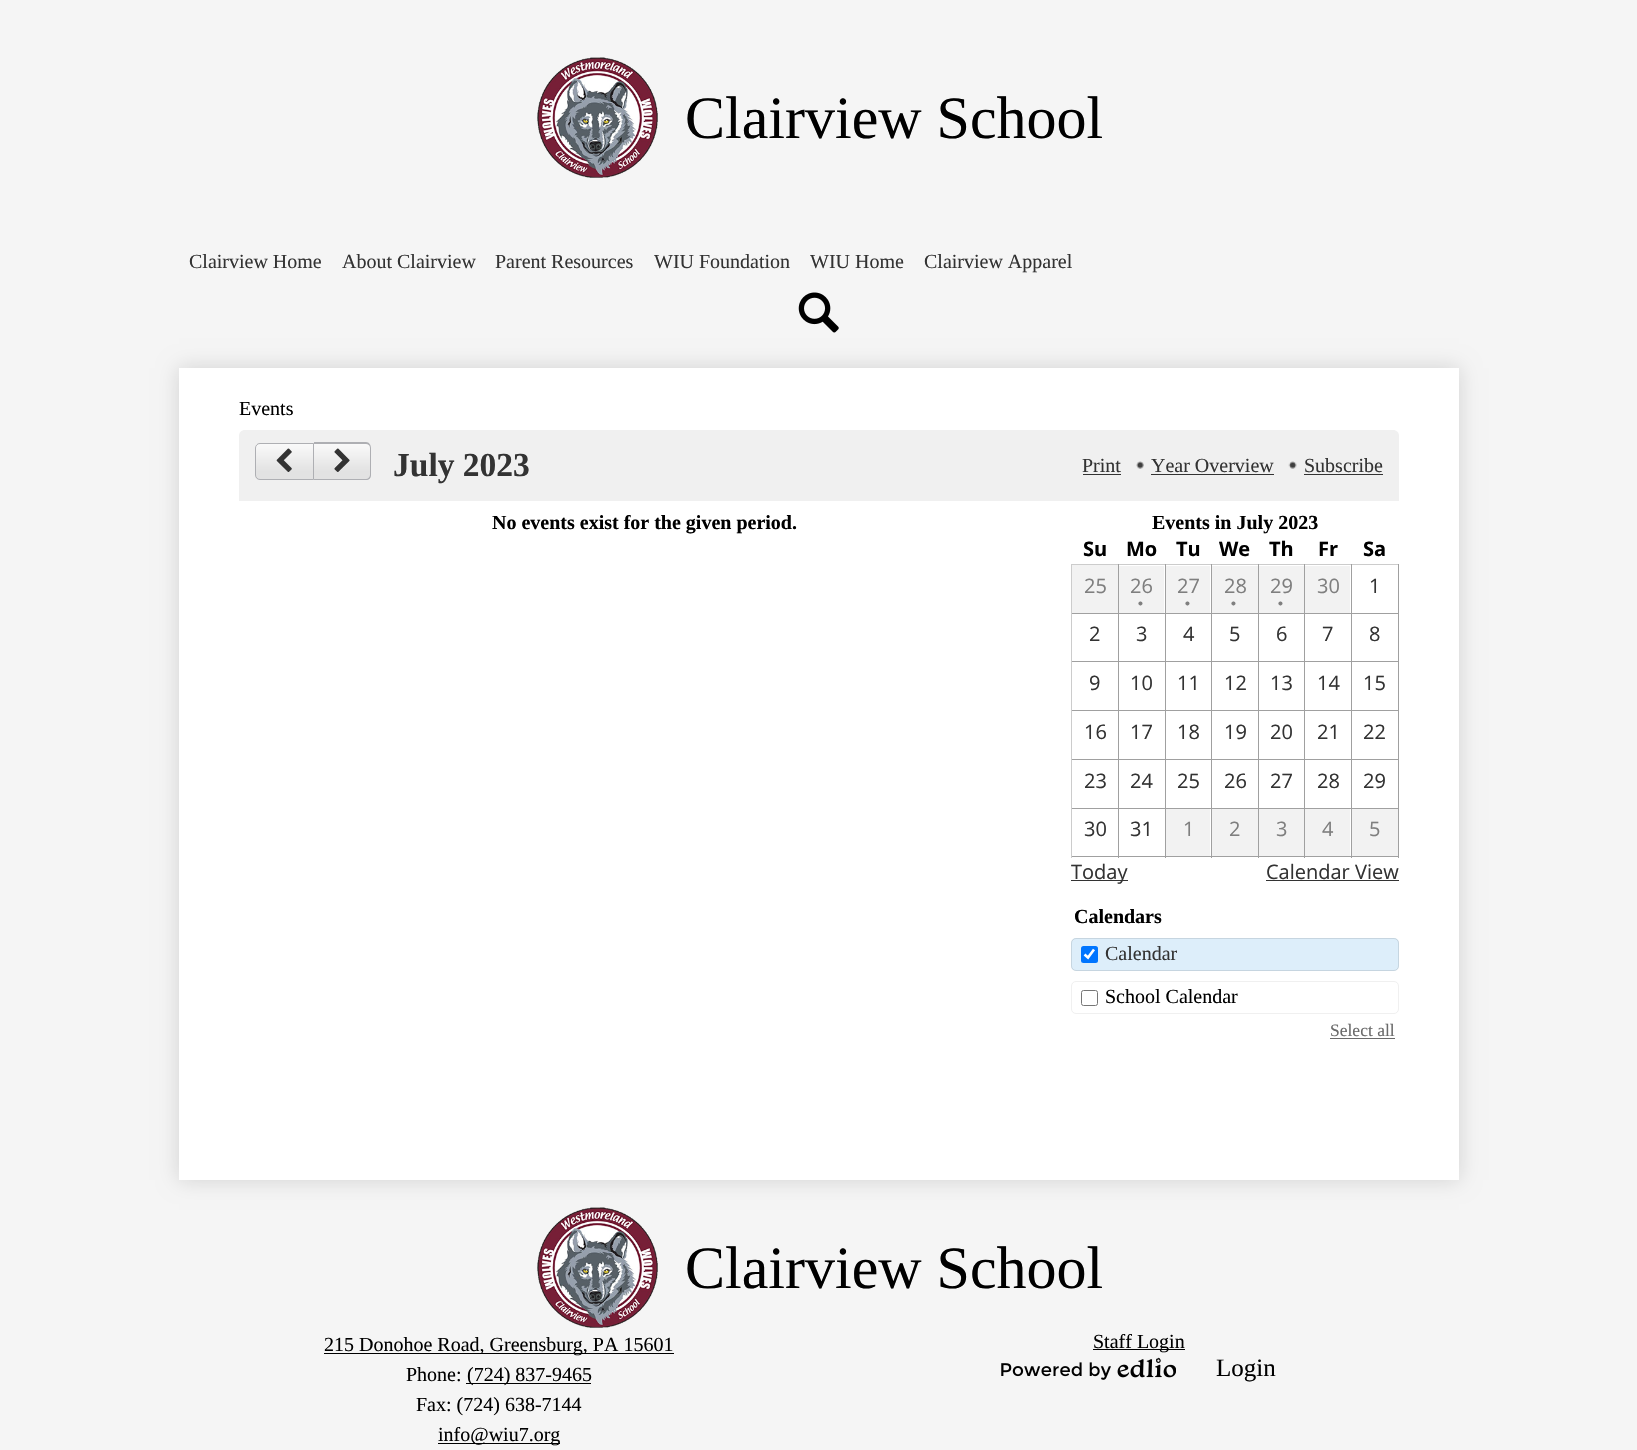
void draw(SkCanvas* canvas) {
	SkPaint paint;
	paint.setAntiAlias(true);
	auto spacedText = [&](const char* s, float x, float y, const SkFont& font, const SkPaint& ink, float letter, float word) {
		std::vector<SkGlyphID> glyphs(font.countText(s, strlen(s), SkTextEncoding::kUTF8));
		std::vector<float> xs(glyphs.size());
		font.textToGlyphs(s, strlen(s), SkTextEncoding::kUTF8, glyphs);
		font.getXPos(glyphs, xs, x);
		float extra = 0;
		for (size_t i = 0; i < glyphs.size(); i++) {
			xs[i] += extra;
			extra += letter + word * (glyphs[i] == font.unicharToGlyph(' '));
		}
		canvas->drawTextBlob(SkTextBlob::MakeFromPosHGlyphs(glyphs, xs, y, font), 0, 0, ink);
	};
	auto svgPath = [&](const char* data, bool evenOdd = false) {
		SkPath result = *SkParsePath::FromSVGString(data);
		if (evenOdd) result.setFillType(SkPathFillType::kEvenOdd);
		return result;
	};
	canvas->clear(0xfff5f5f5);
	canvas->drawImageRect(SkImages::DeferredFromEncodedData(SkData::MakeFromFileName("img1.png")), SkRect::MakeXYWH(537, 57, 121, 121), SkSamplingOptions());
	SkFont f1(fontMgr->matchFamilyStyle("Liberation Serif", SkFontStyle::Normal()), 60);
	f1.setSubpixel(true);
	paint.setColor(0xff000000);
	canvas->drawString("Clairview School", 685, 138, f1, paint);
	SkFont f2(fontMgr->matchFamilyStyle("Liberation Serif", SkFontStyle::Normal()), 20);
	f2.setSubpixel(true);
	paint.setColor(0xff333333);
	canvas->drawString("Clairview Home", 189, 268, f2, paint);
	canvas->drawString("About Clairview", 342, 268, f2, paint);
	canvas->drawString("Parent Resources", 495, 268, f2, paint);
	canvas->drawString("WIU Foundation", 654, 268, f2, paint);
	canvas->drawString("WIU Home", 810, 268, f2, paint);
	canvas->drawString("Clairview Apparel", 924, 268, f2, paint);
	canvas->drawImageRect(SkImages::DeferredFromEncodedData(SkData::MakeFromFileName("img2.png")), SkRect::MakeXYWH(798, 292, 41, 41), SkSamplingOptions());
	canvas->drawImageRect(SkImages::DeferredFromEncodedData(SkData::MakeFromFileName("img1.png")), SkRect::MakeXYWH(537, 1207, 121, 121), SkSamplingOptions());
	paint.setColor(0x26000000);
	paint.setMaskFilter(SkMaskFilter::MakeBlur(kNormal_SkBlurStyle, 10));
	canvas->drawRect(SkRect::MakeXYWH(179, 368, 1280, 812), paint);
	paint.setMaskFilter(nullptr);
	paint.setColor(0xffffffff);
	canvas->drawRect(SkRect::MakeXYWH(179, 368, 1280, 812), paint);
	paint.setColor(0xff000000);
	canvas->drawString("Events", 239, 415, f2, paint);
	paint.setColor(0xfff0f0f0);
	canvas->drawPath(svgPath("M245 430H1393C1396.5 430 1399 432.5 1399 436V501H239V436C239 432.5 241.5 430 245 430Z"), paint);
	paint.setColor(0xffe2e2e2);
	canvas->drawPath(svgPath("M260 443H314V480H260C257 480 255 478 255 475V448C255 445 257 443 260 443Z"), paint);
	canvas->save();
	canvas->clipPath(svgPath("M260 443H314V480H260C257 480 255 478 255 475V448C255 445 257 443 260 443Z"), true);
	{
		const SkColor colors[] = {0xccffffff, 0x00ffffff};
		const float stops[] = {0, 1};
		const SkPoint ends[] = {{256, 444}, {256, 472}};
		paint.setShader(SkGradientShader::MakeLinear(ends, colors, stops, 2, SkTileMode::kClamp));
		paint.setAlpha(255);
	}
	canvas->drawRect(SkRect::MakeXYWH(255, 444, 58, 27), paint);
	canvas->restore();
	paint.setStroke(true);
	paint.setStrokeWidth(1);
	paint.setShader(nullptr);
	paint.setColor(0xffaeafb3);
	canvas->drawPath(svgPath("M260 443.5H313.5V479.5H260C257.5 479.5 255.5 477.5 255.5 475V448C255.5 445.5 257.5 443.5 260 443.5Z"), paint);
	canvas->drawImageRect(SkImages::DeferredFromEncodedData(SkData::MakeFromFileName("img3.png")), SkRect::MakeXYWH(276, 448, 16, 24), SkSamplingOptions());
	paint.setStroke(false);
	paint.setColor(0xffe2e2e2);
	canvas->drawPath(svgPath("M314 443H366C369 443 371 445 371 448V475C371 478 369 480 366 480H314Z"), paint);
	canvas->save();
	canvas->clipPath(svgPath("M314 443H366C369 443 371 445 371 448V475C371 478 369 480 366 480H314Z"), true);
	{
		const SkColor colors[] = {0xccffffff, 0x00ffffff};
		const float stops[] = {0, 1};
		const SkPoint ends[] = {{314, 444}, {314, 472}};
		paint.setShader(SkGradientShader::MakeLinear(ends, colors, stops, 2, SkTileMode::kClamp));
		paint.setAlpha(255);
	}
	canvas->drawRect(SkRect::MakeXYWH(314, 444, 57, 27), paint);
	canvas->restore();
	paint.setShader(nullptr);
	paint.setColor(0xffaeafb3);
	canvas->drawPath(svgPath("M314 442H366C369 442 371 445 371 448V475C371 478 369 480 366 480H314ZM314 444H366C368 444 370 445 370 448V475C370 477 368 479 366 479H314Z", true), paint);
	canvas->drawImageRect(SkImages::DeferredFromEncodedData(SkData::MakeFromFileName("img4.png")), SkRect::MakeXYWH(334, 448, 16, 24), SkSamplingOptions());
	SkFont f3(fontMgr->matchFamilyStyle("Liberation Serif", SkFontStyle::Bold()), 33.5);
	f3.setSubpixel(true);
	paint.setColor(0xff333333);
	canvas->drawString("July 2023", 393, 476, f3, paint);
	canvas->drawImageRect(SkImages::DeferredFromEncodedData(SkData::MakeFromFileName("img5.png")), SkRect::MakeXYWH(1136, 461, 8, 8), SkSamplingOptions());
	canvas->drawString("Print", 1082, 472, f2, paint);
	canvas->drawRect(SkRect::MakeXYWH(1083, 474, 38, 1), paint);
	canvas->drawImageRect(SkImages::DeferredFromEncodedData(SkData::MakeFromFileName("img6.png")), SkRect::MakeXYWH(1288, 461, 9, 8), SkSamplingOptions());
	canvas->drawString("Year Overview", 1151, 472, f2, paint);
	canvas->drawRect(SkRect::MakeXYWH(1151, 474, 123, 1), paint);
	canvas->drawString("Subscribe", 1304, 472, f2, paint);
	canvas->drawRect(SkRect::MakeXYWH(1304, 474, 79, 1), paint);
	SkFont f4(fontMgr->matchFamilyStyle("Liberation Serif", SkFontStyle::Bold()), 20);
	f4.setSubpixel(true);
	paint.setColor(0xff000000);
	canvas->drawString("No events exist for the given period.", 492, 529, f4, paint);
	canvas->drawString("Events in July 2023", 1152, 529, f4, paint);
	SkFont f5(fontMgr->matchFamilyStyle("Open Sans", SkFontStyle::Bold()), 20);
	f5.setSubpixel(true);
	canvas->drawString("Su", 1083, 556, f5, paint);
	canvas->drawString("Mo", 1126, 556, f5, paint);
	canvas->drawString("Tu", 1176, 556, f5, paint);
	canvas->drawString("We", 1219, 556, f5, paint);
	canvas->drawString("Th", 1269, 556, f5, paint);
	canvas->drawString("Fr", 1318, 556, f5, paint);
	canvas->drawString("Sa", 1363, 556, f5, paint);
	paint.setColor(0xfff2f2f2);
	canvas->drawRect(SkRect::MakeXYWH(1072, 565, 46, 48), paint);
	paint.setColor(0xffcccccc);
	canvas->drawRect(SkRect::MakeXYWH(1071, 564, 328, 1), paint);
	paint.setColor(0xffa0a0a0);
	canvas->drawRect(SkRect::MakeXYWH(1398, 613, 1, 245), paint);
	canvas->drawRect(SkRect::MakeXYWH(1398, 564, 1, 50), paint);
	canvas->drawRect(SkRect::MakeXYWH(1351, 856, 48, 1), paint);
	canvas->drawRect(SkRect::MakeXYWH(1351, 808, 1, 50), paint);
	canvas->drawRect(SkRect::MakeXYWH(1351, 808, 48, 1), paint);
	canvas->drawRect(SkRect::MakeXYWH(1351, 759, 1, 50), paint);
	canvas->drawRect(SkRect::MakeXYWH(1351, 759, 48, 1), paint);
	canvas->drawRect(SkRect::MakeXYWH(1351, 710, 1, 50), paint);
	canvas->drawRect(SkRect::MakeXYWH(1351, 710, 48, 1), paint);
	canvas->drawRect(SkRect::MakeXYWH(1351, 661, 1, 50), paint);
	canvas->drawRect(SkRect::MakeXYWH(1351, 661, 48, 1), paint);
	canvas->drawRect(SkRect::MakeXYWH(1351, 613, 1, 50), paint);
	canvas->drawRect(SkRect::MakeXYWH(1351, 613, 48, 1), paint);
	canvas->drawRect(SkRect::MakeXYWH(1351, 564, 1, 50), paint);
	canvas->drawRect(SkRect::MakeXYWH(1304, 856, 49, 1), paint);
	canvas->drawRect(SkRect::MakeXYWH(1304, 808, 1, 50), paint);
	canvas->drawRect(SkRect::MakeXYWH(1304, 808, 49, 1), paint);
	canvas->drawRect(SkRect::MakeXYWH(1304, 759, 1, 50), paint);
	canvas->drawRect(SkRect::MakeXYWH(1304, 759, 49, 1), paint);
	canvas->drawRect(SkRect::MakeXYWH(1304, 710, 1, 50), paint);
	canvas->drawRect(SkRect::MakeXYWH(1304, 710, 49, 1), paint);
	canvas->drawRect(SkRect::MakeXYWH(1304, 661, 1, 50), paint);
	canvas->drawRect(SkRect::MakeXYWH(1304, 661, 49, 1), paint);
	canvas->drawRect(SkRect::MakeXYWH(1304, 613, 1, 50), paint);
	canvas->drawRect(SkRect::MakeXYWH(1304, 613, 49, 1), paint);
	canvas->drawRect(SkRect::MakeXYWH(1304, 564, 1, 50), paint);
	canvas->drawRect(SkRect::MakeXYWH(1258, 856, 47, 1), paint);
	canvas->drawRect(SkRect::MakeXYWH(1258, 808, 1, 50), paint);
	canvas->drawRect(SkRect::MakeXYWH(1258, 808, 47, 1), paint);
	canvas->drawRect(SkRect::MakeXYWH(1258, 759, 1, 50), paint);
	canvas->drawRect(SkRect::MakeXYWH(1258, 759, 47, 1), paint);
	canvas->drawRect(SkRect::MakeXYWH(1258, 710, 1, 50), paint);
	canvas->drawRect(SkRect::MakeXYWH(1258, 710, 47, 1), paint);
	canvas->drawRect(SkRect::MakeXYWH(1258, 661, 1, 50), paint);
	canvas->drawRect(SkRect::MakeXYWH(1258, 661, 47, 1), paint);
	canvas->drawRect(SkRect::MakeXYWH(1258, 613, 1, 50), paint);
	canvas->drawRect(SkRect::MakeXYWH(1258, 613, 47, 1), paint);
	canvas->drawRect(SkRect::MakeXYWH(1258, 564, 1, 50), paint);
	canvas->drawRect(SkRect::MakeXYWH(1211, 856, 48, 1), paint);
	canvas->drawRect(SkRect::MakeXYWH(1211, 808, 1, 50), paint);
	canvas->drawRect(SkRect::MakeXYWH(1211, 808, 48, 1), paint);
	canvas->drawRect(SkRect::MakeXYWH(1211, 759, 1, 50), paint);
	canvas->drawRect(SkRect::MakeXYWH(1211, 759, 48, 1), paint);
	canvas->drawRect(SkRect::MakeXYWH(1211, 710, 1, 50), paint);
	canvas->drawRect(SkRect::MakeXYWH(1211, 710, 48, 1), paint);
	canvas->drawRect(SkRect::MakeXYWH(1211, 661, 1, 50), paint);
	canvas->drawRect(SkRect::MakeXYWH(1211, 661, 48, 1), paint);
	canvas->drawRect(SkRect::MakeXYWH(1211, 613, 1, 50), paint);
	canvas->drawRect(SkRect::MakeXYWH(1211, 613, 48, 1), paint);
	canvas->drawRect(SkRect::MakeXYWH(1211, 564, 1, 50), paint);
	canvas->drawRect(SkRect::MakeXYWH(1165, 856, 48, 1), paint);
	canvas->drawRect(SkRect::MakeXYWH(1165, 808, 1, 50), paint);
	canvas->drawRect(SkRect::MakeXYWH(1165, 808, 48, 1), paint);
	canvas->drawRect(SkRect::MakeXYWH(1165, 759, 1, 50), paint);
	canvas->drawRect(SkRect::MakeXYWH(1165, 759, 48, 1), paint);
	canvas->drawRect(SkRect::MakeXYWH(1165, 710, 1, 50), paint);
	canvas->drawRect(SkRect::MakeXYWH(1165, 710, 48, 1), paint);
	canvas->drawRect(SkRect::MakeXYWH(1165, 661, 1, 50), paint);
	canvas->drawRect(SkRect::MakeXYWH(1165, 661, 48, 1), paint);
	canvas->drawRect(SkRect::MakeXYWH(1165, 613, 1, 50), paint);
	canvas->drawRect(SkRect::MakeXYWH(1165, 613, 48, 1), paint);
	canvas->drawRect(SkRect::MakeXYWH(1165, 564, 1, 50), paint);
	canvas->drawRect(SkRect::MakeXYWH(1118, 856, 48, 1), paint);
	canvas->drawRect(SkRect::MakeXYWH(1118, 808, 1, 50), paint);
	canvas->drawRect(SkRect::MakeXYWH(1118, 808, 48, 1), paint);
	canvas->drawRect(SkRect::MakeXYWH(1118, 759, 1, 50), paint);
	canvas->drawRect(SkRect::MakeXYWH(1118, 759, 48, 1), paint);
	canvas->drawRect(SkRect::MakeXYWH(1118, 710, 1, 50), paint);
	canvas->drawRect(SkRect::MakeXYWH(1118, 710, 48, 1), paint);
	canvas->drawRect(SkRect::MakeXYWH(1118, 661, 1, 50), paint);
	canvas->drawRect(SkRect::MakeXYWH(1118, 661, 48, 1), paint);
	canvas->drawRect(SkRect::MakeXYWH(1118, 613, 1, 50), paint);
	canvas->drawRect(SkRect::MakeXYWH(1118, 613, 48, 1), paint);
	canvas->drawRect(SkRect::MakeXYWH(1118, 564, 1, 50), paint);
	canvas->drawRect(SkRect::MakeXYWH(1071, 856, 48, 1), paint);
	paint.setColor(0xffcccccc);
	canvas->drawRect(SkRect::MakeXYWH(1071, 808, 1, 50), paint);
	paint.setColor(0xffa0a0a0);
	canvas->drawRect(SkRect::MakeXYWH(1071, 808, 48, 1), paint);
	paint.setColor(0xffcccccc);
	canvas->drawRect(SkRect::MakeXYWH(1071, 759, 1, 50), paint);
	paint.setColor(0xffa0a0a0);
	canvas->drawRect(SkRect::MakeXYWH(1071, 759, 48, 1), paint);
	paint.setColor(0xffcccccc);
	canvas->drawRect(SkRect::MakeXYWH(1071, 710, 1, 50), paint);
	paint.setColor(0xffa0a0a0);
	canvas->drawRect(SkRect::MakeXYWH(1071, 710, 48, 1), paint);
	paint.setColor(0xffcccccc);
	canvas->drawRect(SkRect::MakeXYWH(1071, 661, 1, 50), paint);
	paint.setColor(0xffa0a0a0);
	canvas->drawRect(SkRect::MakeXYWH(1071, 661, 48, 1), paint);
	paint.setColor(0xffcccccc);
	canvas->drawRect(SkRect::MakeXYWH(1071, 613, 1, 50), paint);
	paint.setColor(0xffa0a0a0);
	canvas->drawRect(SkRect::MakeXYWH(1071, 613, 48, 1), paint);
	paint.setColor(0xffcccccc);
	canvas->drawRect(SkRect::MakeXYWH(1071, 564, 1, 50), paint);
	SkFont f6(fontMgr->matchFamilyStyle("Open Sans", SkFontStyle::Normal()), 20);
	f6.setSubpixel(true);
	paint.setColor(0xff7f7f7f);
	canvas->drawString("25", 1084, 593, f6, paint);
	paint.setColor(0xfff2f2f2);
	canvas->drawRect(SkRect::MakeXYWH(1119, 566, 45, 47), paint);
	paint.setColor(0xff7f7f7f);
	canvas->drawString("26", 1130, 593, f6, paint);
	SkFont f7(fontMgr->matchFamilyStyle("Liberation Sans", SkFontStyle::Bold()), 14);
	f7.setSubpixel(true);
	spacedText("•", 1138, 608, f7, paint, 2, 0);
	paint.setColor(0xfff2f2f2);
	canvas->drawRect(SkRect::MakeXYWH(1166, 566, 44, 47), paint);
	paint.setColor(0xff7f7f7f);
	canvas->drawString("27", 1177, 593, f6, paint);
	spacedText("•", 1185, 608, f7, paint, 2, 0);
	paint.setColor(0xfff2f2f2);
	canvas->drawRect(SkRect::MakeXYWH(1212, 566, 46, 47), paint);
	paint.setColor(0xff7f7f7f);
	canvas->drawString("28", 1224, 593, f6, paint);
	spacedText("•", 1231, 608, f7, paint, 2, 0);
	paint.setColor(0xfff2f2f2);
	canvas->drawRect(SkRect::MakeXYWH(1259, 566, 45, 47), paint);
	paint.setColor(0xff7f7f7f);
	canvas->drawString("29", 1270, 593, f6, paint);
	spacedText("•", 1278, 608, f7, paint, 2, 0);
	paint.setColor(0xfff2f2f2);
	canvas->drawRect(SkRect::MakeXYWH(1305, 566, 45, 47), paint);
	paint.setColor(0xff7f7f7f);
	canvas->drawString("30", 1317, 593, f6, paint);
	paint.setColor(0xff333333);
	canvas->drawString("1", 1369, 593, f6, paint);
	canvas->drawString("2", 1089, 641, f6, paint);
	canvas->drawString("3", 1136, 641, f6, paint);
	canvas->drawString("4", 1183, 641, f6, paint);
	canvas->drawString("5", 1229, 641, f6, paint);
	canvas->drawString("6", 1276, 641, f6, paint);
	canvas->drawString("7", 1322, 641, f6, paint);
	canvas->drawString("8", 1369, 641, f6, paint);
	canvas->drawString("9", 1089, 690, f6, paint);
	canvas->drawString("10", 1130, 690, f6, paint);
	canvas->drawString("11", 1177, 690, f6, paint);
	canvas->drawString("12", 1224, 690, f6, paint);
	canvas->drawString("13", 1270, 690, f6, paint);
	canvas->drawString("14", 1317, 690, f6, paint);
	canvas->drawString("15", 1363, 690, f6, paint);
	canvas->drawString("16", 1084, 739, f6, paint);
	canvas->drawString("17", 1130, 739, f6, paint);
	canvas->drawString("18", 1177, 739, f6, paint);
	canvas->drawString("19", 1224, 739, f6, paint);
	canvas->drawString("20", 1270, 739, f6, paint);
	canvas->drawString("21", 1317, 739, f6, paint);
	canvas->drawString("22", 1363, 739, f6, paint);
	canvas->drawString("23", 1084, 788, f6, paint);
	canvas->drawString("24", 1130, 788, f6, paint);
	canvas->drawString("25", 1177, 788, f6, paint);
	canvas->drawString("26", 1224, 788, f6, paint);
	canvas->drawString("27", 1270, 788, f6, paint);
	canvas->drawString("28", 1317, 788, f6, paint);
	canvas->drawString("29", 1363, 788, f6, paint);
	canvas->drawString("30", 1084, 836, f6, paint);
	canvas->drawString("31", 1130, 836, f6, paint);
	paint.setColor(0xfff2f2f2);
	canvas->drawRect(SkRect::MakeXYWH(1166, 809, 44, 47), paint);
	paint.setColor(0xff7f7f7f);
	canvas->drawString("1", 1183, 836, f6, paint);
	paint.setColor(0xfff2f2f2);
	canvas->drawRect(SkRect::MakeXYWH(1212, 809, 46, 47), paint);
	paint.setColor(0xff7f7f7f);
	canvas->drawString("2", 1229, 836, f6, paint);
	paint.setColor(0xfff2f2f2);
	canvas->drawRect(SkRect::MakeXYWH(1259, 809, 45, 47), paint);
	paint.setColor(0xff7f7f7f);
	canvas->drawString("3", 1276, 836, f6, paint);
	paint.setColor(0xfff2f2f2);
	canvas->drawRect(SkRect::MakeXYWH(1305, 809, 45, 47), paint);
	paint.setColor(0xff7f7f7f);
	canvas->drawString("4", 1322, 836, f6, paint);
	paint.setColor(0xfff2f2f2);
	canvas->drawRect(SkRect::MakeXYWH(1352, 809, 46, 47), paint);
	paint.setColor(0xff7f7f7f);
	canvas->drawString("5", 1369, 836, f6, paint);
	paint.setColor(0xff333333);
	canvas->drawRect(SkRect::MakeXYWH(1071, 880, 57, 1), paint);
	canvas->drawString("Today", 1071, 879, f6, paint);
	canvas->drawString("Calendar View", 1266, 879, f6, paint);
	canvas->drawRect(SkRect::MakeXYWH(1266, 880, 133, 1), paint);
	paint.setColor(0xff000000);
	canvas->drawString("Calendars", 1074, 923, f4, paint);
	paint.setColor(0xffddeefa);
	canvas->drawRoundRect(SkRect::MakeXYWH(1071, 938, 328, 33), 5, 5, paint);
	paint.setStroke(true);
	paint.setColor(0x1a000000);
	canvas->drawRoundRect(SkRect::MakeXYWH(1071.5, 938.5, 327, 32), 4.5, 4.5, paint);
	paint.setStroke(false);
	paint.setColor(0xff0075ff);
	canvas->drawRoundRect(SkRect::MakeXYWH(1081, 946, 17, 17), 2.5, 2.5, paint);
	paint.setStroke(true);
	paint.setStrokeWidth(2.6);
	paint.setColor(0xffffffff);
	canvas->drawPath(svgPath("M1084.5 954.5L1088 957.5L1094 949.5"), paint);
	paint.setStroke(false);
	paint.setColor(0xff333333);
	canvas->drawString("Calendar", 1105, 960, f2, paint);
	paint.setStroke(true);
	paint.setStrokeWidth(1);
	paint.setColor(0xfff0f0f0);
	canvas->drawRoundRect(SkRect::MakeXYWH(1071.5, 981.5, 327, 32), 4.5, 4.5, paint);
	paint.setColor(0xff767676);
	canvas->drawRoundRect(SkRect::MakeXYWH(1081.5, 990.5, 16, 15), 2, 2, paint);
	paint.setStroke(false);
	paint.setColor(0xff000000);
	canvas->drawString("School Calendar", 1105, 1003, f2, paint);
	SkFont f8(fontMgr->matchFamilyStyle("Liberation Serif", SkFontStyle::Normal()), 17.5);
	f8.setSubpixel(true);
	paint.setColor(0xff6a6a6a);
	canvas->drawString("Select all", 1330, 1036, f8, paint);
	canvas->drawRect(SkRect::MakeXYWH(1330, 1038, 65, 1), paint);
	paint.setColor(0xff000000);
	canvas->drawString("Clairview School", 685, 1288, f1, paint);
	canvas->drawRect(SkRect::MakeXYWH(324, 1353, 350, 1), paint);
	canvas->drawString("215 Donohoe Road, Greensburg, PA 15601", 324, 1351, f2, paint);
	canvas->drawString("Phone:", 406, 1381, f2, paint);
	canvas->drawRect(SkRect::MakeXYWH(466, 1383, 125, 1), paint);
	canvas->drawString("(724) 837-9465", 467, 1381, f2, paint);
	canvas->drawString("Fax: (724) 638-7144", 416, 1411, f2, paint);
	canvas->drawRect(SkRect::MakeXYWH(438, 1443, 122, 1), paint);
	canvas->drawString("info@wiu7.org", 438, 1441, f2, paint);
	canvas->drawRect(SkRect::MakeXYWH(1093, 1349, 92, 1), paint);
	canvas->drawString("Staff Login", 1093, 1348, f2, paint);
	canvas->drawImageRect(SkImages::DeferredFromEncodedData(SkData::MakeFromFileName("img7.png")), SkRect::MakeXYWH(1001, 1357, 175, 23), SkSamplingOptions());
	SkFont f9(fontMgr->matchFamilyStyle("Liberation Serif", SkFontStyle::Normal()), 25);
	f9.setSubpixel(true);
	canvas->drawString("Login", 1216, 1376, f9, paint);
}
